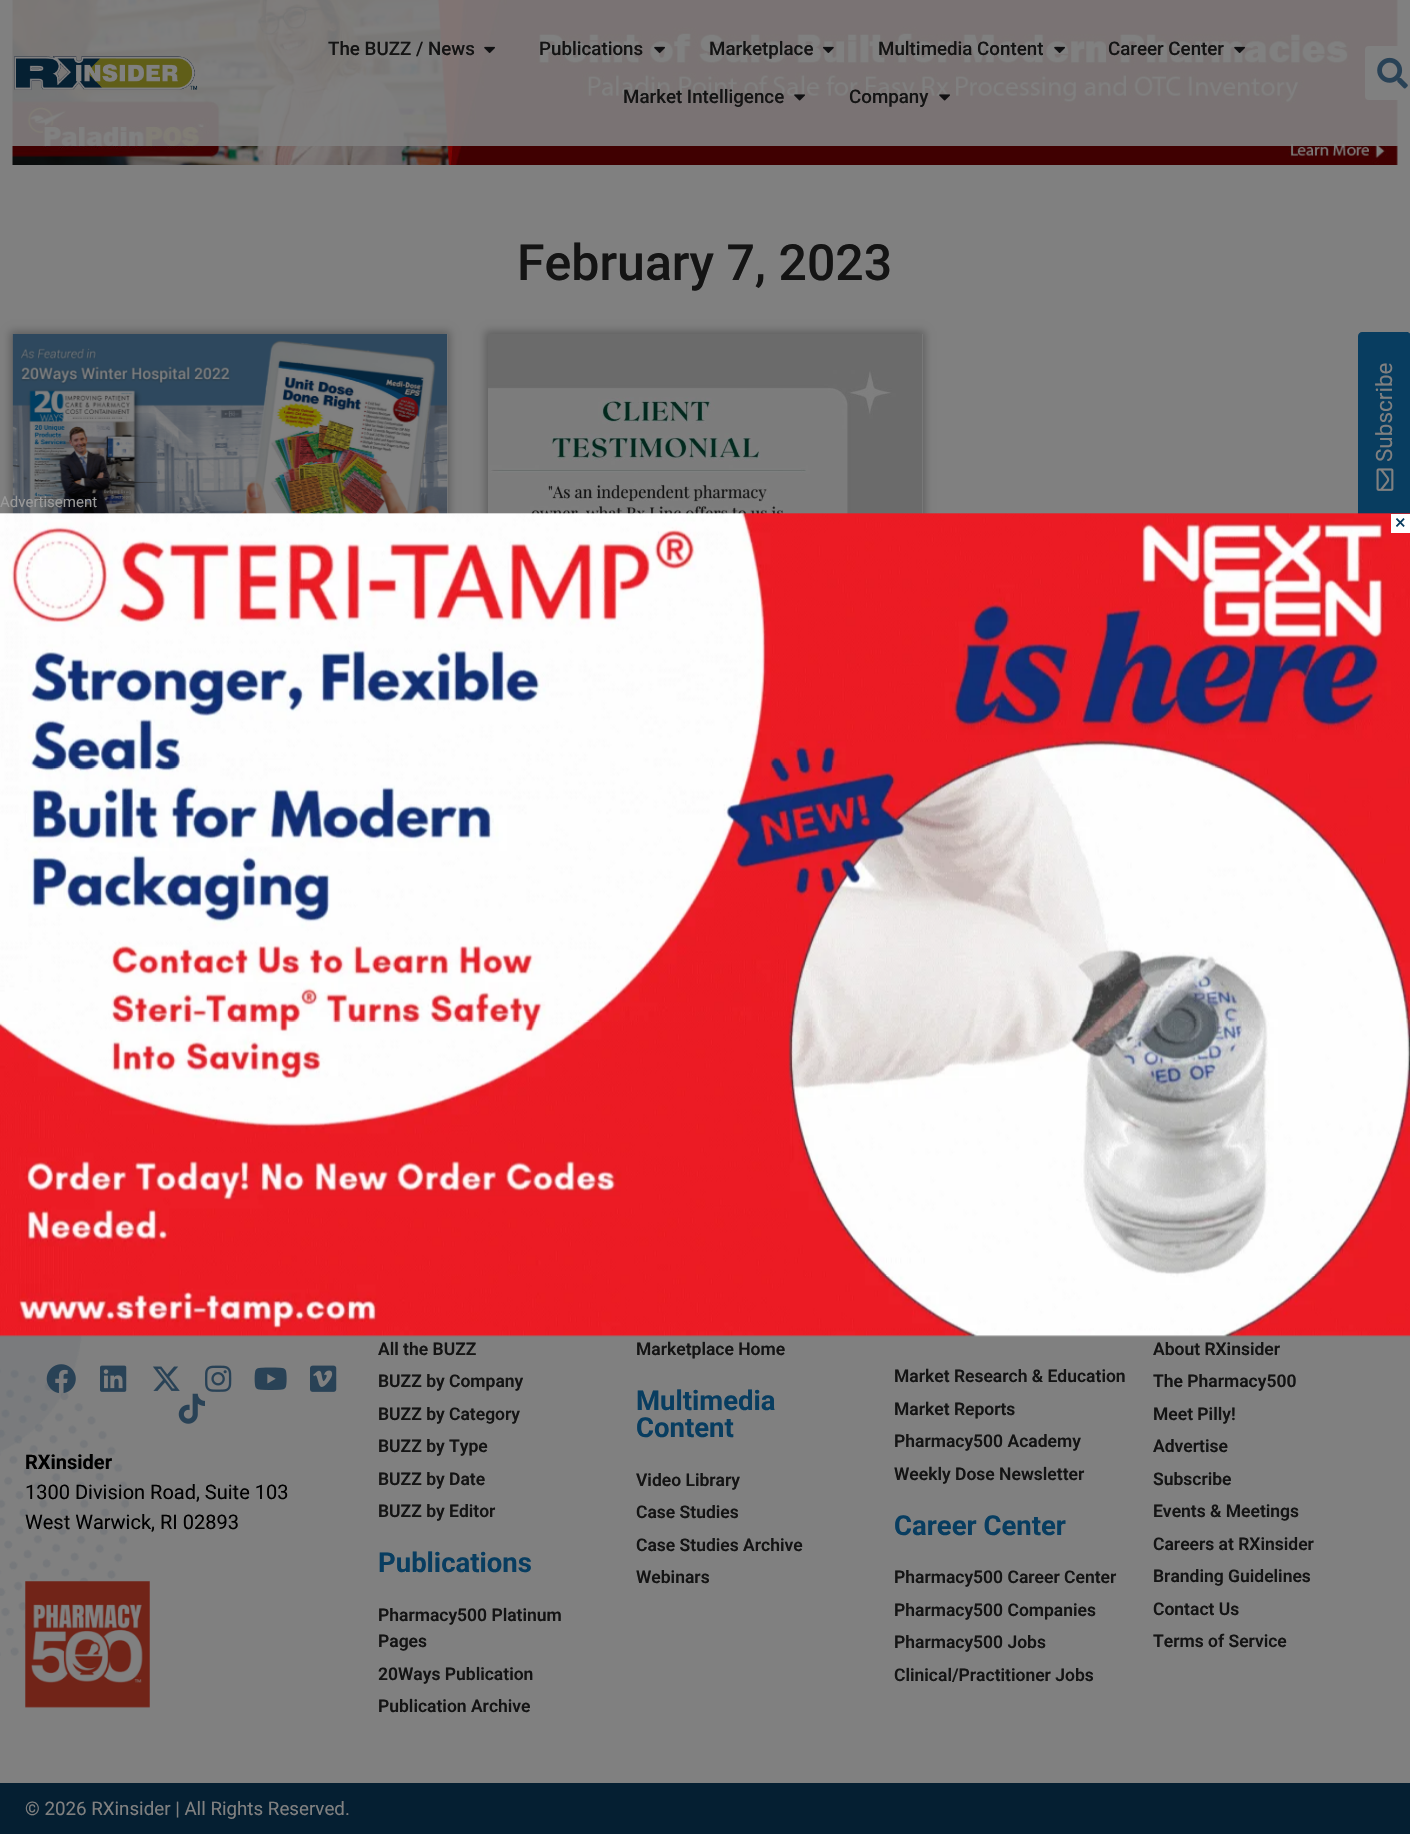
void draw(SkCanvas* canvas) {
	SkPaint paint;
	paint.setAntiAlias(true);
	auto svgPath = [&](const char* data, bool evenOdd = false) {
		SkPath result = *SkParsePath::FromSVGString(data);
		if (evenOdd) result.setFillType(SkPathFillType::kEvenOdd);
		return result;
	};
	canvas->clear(0xff808080);
	canvas->drawImageRect(SkImages::DeferredFromEncodedData(SkData::MakeFromFileName("img10.png")), SkRect::MakeXYWH(12, 0, 1386, 165), SkSamplingOptions());
	paint.setColor(0xe6808080);
	canvas->drawRect(SkRect::MakeXYWH(12, 0, 1386, 146), paint);
	canvas->drawImageRect(SkImages::DeferredFromEncodedData(SkData::MakeFromFileName("img1.png")), SkRect::MakeXYWH(14, 56, 184, 34), SkSamplingOptions());
	SkFont f1(fontMgr->matchFamilyStyle("Roboto", SkFontStyle(500, SkFontStyle::kNormal_Width, SkFontStyle::kUpright_Slant)), 18.75);
	f1.setSubpixel(true);
	paint.setColor(0xff141414);
	canvas->drawString("The BUZZ / News", 328, 55, f1, paint);
	canvas->drawImageRect(SkImages::DeferredFromEncodedData(SkData::MakeFromFileName("img2.png")), SkRect::MakeXYWH(484, 46, 11, 7), SkSamplingOptions());
	canvas->drawString("Publications", 539, 55, f1, paint);
	canvas->drawImageRect(SkImages::DeferredFromEncodedData(SkData::MakeFromFileName("img3.png")), SkRect::MakeXYWH(654, 46, 11, 7), SkSamplingOptions());
	canvas->drawString("Marketplace", 709, 55, f1, paint);
	canvas->drawImageRect(SkImages::DeferredFromEncodedData(SkData::MakeFromFileName("img4.png")), SkRect::MakeXYWH(822, 46, 12, 7), SkSamplingOptions());
	canvas->drawString("Multimedia Content", 878, 55, f1, paint);
	canvas->drawImageRect(SkImages::DeferredFromEncodedData(SkData::MakeFromFileName("img5.png")), SkRect::MakeXYWH(1054, 46, 11, 7), SkSamplingOptions());
	canvas->drawString("Career Center", 1108, 55, f1, paint);
	canvas->drawImageRect(SkImages::DeferredFromEncodedData(SkData::MakeFromFileName("img6.png")), SkRect::MakeXYWH(1234, 46, 11, 7), SkSamplingOptions());
	canvas->drawString("Market Intelligence", 623, 103, f1, paint);
	canvas->drawImageRect(SkImages::DeferredFromEncodedData(SkData::MakeFromFileName("img7.png")), SkRect::MakeXYWH(794, 94, 11, 7), SkSamplingOptions());
	canvas->drawString("Company", 849, 103, f1, paint);
	canvas->drawImageRect(SkImages::DeferredFromEncodedData(SkData::MakeFromFileName("img8.png")), SkRect::MakeXYWH(939, 94, 11, 7), SkSamplingOptions());
	paint.setColor(0xff808080);
	canvas->drawRoundRect(SkRect::MakeXYWH(1365, 46, 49, 54), 4, 4, paint);
	canvas->drawImageRect(SkImages::DeferredFromEncodedData(SkData::MakeFromFileName("img9.png")), SkRect::MakeXYWH(1377, 57, 31, 32), SkSamplingOptions());
	SkFont f2(fontMgr->matchFamilyStyle("Roboto", SkFontStyle(500, SkFontStyle::kNormal_Width, SkFontStyle::kUpright_Slant)), 50);
	f2.setSubpixel(true);
	paint.setColor(0xff141414);
	canvas->drawString("February 7, 2023", 517, 280, f2, paint);
	paint.setColor(0x40000000);
	paint.setMaskFilter(SkMaskFilter::MakeBlur(kNormal_SkBlurStyle, 4));
	canvas->drawRect(SkRect::MakeXYWH(10, 331, 440, 422), paint);
	paint.setMaskFilter(nullptr);
	paint.setColor(0xff787878);
	canvas->drawRect(SkRect::MakeXYWH(447, 334, 1, 180), paint);
	canvas->drawImageRect(SkImages::DeferredFromEncodedData(SkData::MakeFromFileName("img11.png")), SkRect::MakeXYWH(12, 334, 436, 180), SkSamplingOptions());
	paint.setColor(0x40000000);
	paint.setMaskFilter(SkMaskFilter::MakeBlur(kNormal_SkBlurStyle, 4));
	canvas->drawRect(SkRect::MakeXYWH(485, 331, 440, 422), paint);
	paint.setMaskFilter(nullptr);
	paint.setColor(0xff787878);
	canvas->drawRect(SkRect::MakeXYWH(922, 334, 1, 180), paint);
	canvas->drawImageRect(SkImages::DeferredFromEncodedData(SkData::MakeFromFileName("img12.png")), SkRect::MakeXYWH(488, 334, 434, 180), SkSamplingOptions());
	canvas->drawImageRect(SkImages::DeferredFromEncodedData(SkData::MakeFromFileName("img13.png")), SkRect::MakeXYWH(0, 1335, 129, 321), SkSamplingOptions());
	SkFont f3(fontMgr->matchFamilyStyle("Roboto", SkFontStyle(600, SkFontStyle::kNormal_Width, SkFontStyle::kUpright_Slant)), 17.5);
	f3.setSubpixel(true);
	paint.setColor(0xff141414);
	canvas->drawString("All the BUZZ", 378, 1355, f3, paint);
	canvas->drawString("BUZZ by Company", 378, 1387, f3, paint);
	canvas->drawString("BUZZ by Category", 378, 1420, f3, paint);
	canvas->drawString("BUZZ by Type", 378, 1452, f3, paint);
	canvas->drawString("BUZZ by Date", 378, 1485, f3, paint);
	canvas->drawString("BUZZ by Editor", 378, 1517, f3, paint);
	SkFont f4(fontMgr->matchFamilyStyle("Roboto", SkFontStyle::Bold()), 27.5);
	f4.setSubpixel(true);
	paint.setColor(0xff083d60);
	canvas->drawString("Publications", 378, 1572, f4, paint);
	paint.setColor(0xff141414);
	canvas->drawString("Pharmacy500 Platinum", 378, 1621, f3, paint);
	canvas->drawString("Pages", 378, 1647, f3, paint);
	canvas->drawString("20Ways Publication", 378, 1680, f3, paint);
	canvas->drawString("Publication Archive", 378, 1712, f3, paint);
	canvas->drawString("Marketplace Home", 636, 1355, f3, paint);
	paint.setColor(0xff083d60);
	canvas->drawString("Multimedia", 636, 1410, f4, paint);
	canvas->drawString("Content", 636, 1437, f4, paint);
	paint.setColor(0xff141414);
	canvas->drawString("Video Library", 636, 1486, f3, paint);
	canvas->drawString("Case Studies", 636, 1518, f3, paint);
	canvas->drawString("Case Studies Archive", 636, 1551, f3, paint);
	canvas->drawString("Webinars", 636, 1583, f3, paint);
	canvas->drawString("Market Research & Education", 894, 1382, f3, paint);
	canvas->drawString("Market Reports", 894, 1415, f3, paint);
	canvas->drawString("Pharmacy500 Academy", 894, 1447, f3, paint);
	canvas->drawString("Weekly Dose Newsletter", 894, 1480, f3, paint);
	paint.setColor(0xff083d60);
	canvas->drawString("Career Center", 894, 1535, f4, paint);
	paint.setColor(0xff141414);
	canvas->drawString("Pharmacy500 Career Center", 894, 1583, f3, paint);
	canvas->drawString("Pharmacy500 Companies", 894, 1616, f3, paint);
	canvas->drawString("Pharmacy500 Jobs", 894, 1648, f3, paint);
	canvas->drawString("Clinical/Practitioner Jobs", 894, 1681, f3, paint);
	paint.setColor(0xff083d60);
	canvas->drawPath(svgPath("M1358 517V336C1358 334 1360 332 1362 332H1407C1409 332 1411 334 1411 336V517C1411 519 1409 520 1407 520H1362C1360 520 1358 519 1358 517Z"), paint);
	SkFont f5(fontMgr->matchFamilyStyle("Roboto", SkFontStyle::Normal()), 22.5);
	f5.setSubpixel(true);
	paint.setColor(0xff808080);
	canvas->save();
	canvas->rotate(-90, 1392, 462);
	canvas->drawString("Subscribe", 1392, 462, f5, paint);
	canvas->restore();
	canvas->drawImageRect(SkImages::DeferredFromEncodedData(SkData::MakeFromFileName("img14.png")), SkRect::MakeXYWH(1376, 468, 18, 23), SkSamplingOptions());
	paint.setColor(0xff141414);
	canvas->drawString("About RXinsider", 1153, 1355, f3, paint);
	canvas->drawString("The Pharmacy500", 1153, 1387, f3, paint);
	canvas->drawString("Meet Pilly!", 1153, 1420, f3, paint);
	canvas->drawString("Advertise", 1153, 1452, f3, paint);
	canvas->drawString("Subscribe", 1153, 1485, f3, paint);
	canvas->drawString("Events & Meetings", 1153, 1517, f3, paint);
	canvas->drawString("Careers at RXinsider", 1153, 1550, f3, paint);
	canvas->drawString("Branding Guidelines", 1153, 1582, f3, paint);
	canvas->drawString("Contact Us", 1153, 1615, f3, paint);
	canvas->drawString("Terms of Service", 1153, 1647, f3, paint);
	canvas->drawImageRect(SkImages::DeferredFromEncodedData(SkData::MakeFromFileName("img15.png")), SkRect::MakeXYWH(46, 1364, 30, 29), SkSamplingOptions());
	canvas->drawImageRect(SkImages::DeferredFromEncodedData(SkData::MakeFromFileName("img16.png")), SkRect::MakeXYWH(100, 1365, 27, 27), SkSamplingOptions());
	canvas->drawImageRect(SkImages::DeferredFromEncodedData(SkData::MakeFromFileName("img17.png")), SkRect::MakeXYWH(152, 1366, 28, 25), SkSamplingOptions());
	canvas->drawImageRect(SkImages::DeferredFromEncodedData(SkData::MakeFromFileName("img18.png")), SkRect::MakeXYWH(205, 1365, 27, 27), SkSamplingOptions());
	canvas->drawImageRect(SkImages::DeferredFromEncodedData(SkData::MakeFromFileName("img19.png")), SkRect::MakeXYWH(254, 1367, 33, 23), SkSamplingOptions());
	canvas->drawImageRect(SkImages::DeferredFromEncodedData(SkData::MakeFromFileName("img20.png")), SkRect::MakeXYWH(310, 1365, 27, 27), SkSamplingOptions());
	canvas->drawImageRect(SkImages::DeferredFromEncodedData(SkData::MakeFromFileName("img21.png")), SkRect::MakeXYWH(178, 1393, 27, 31), SkSamplingOptions());
	SkFont f6(fontMgr->matchFamilyStyle("Roboto", SkFontStyle::Bold()), 20);
	f6.setSubpixel(true);
	paint.setColor(0xff000000);
	canvas->drawString("RXinsider", 25, 1469, f6, paint);
	SkFont f7(fontMgr->matchFamilyStyle("Roboto", SkFontStyle::Normal()), 20);
	f7.setSubpixel(true);
	canvas->drawString("1300 Division Road, Suite 103", 25, 1499, f7, paint);
	canvas->drawString("West Warwick, RI 02893", 25, 1529, f7, paint);
	canvas->drawImageRect(SkImages::DeferredFromEncodedData(SkData::MakeFromFileName("img22.png")), SkRect::MakeXYWH(25, 1581, 125, 127), SkSamplingOptions());
	paint.setColor(0xff051f32);
	canvas->drawRect(SkRect::MakeXYWH(0, 1783, 1410, 51), paint);
	SkFont f8(fontMgr->matchFamilyStyle("Roboto", SkFontStyle::Normal()), 18.75);
	f8.setSubpixel(true);
	paint.setColor(0xff808080);
	canvas->drawString("© 2026 RXinsider | All Rights Reserved.", 25, 1815, f8, paint);
	SkFont f9(fontMgr->matchFamilyStyle("Roboto", SkFontStyle::Normal()), 15);
	f9.setSubpixel(true);
	paint.setColor(0xff9a9a9a);
	canvas->drawString("Advertisement", 0, 507, f9, paint);
	canvas->drawImageRect(SkImages::DeferredFromEncodedData(SkData::MakeFromFileName("img23.png")), SkRect::MakeXYWH(0, 513, 1410, 824), SkSamplingOptions());
	paint.setColor(0xffffffff);
	canvas->drawRect(SkRect::MakeXYWH(1391, 514, 19, 19), paint);
	paint.setColor(0xff083d60);
	canvas->drawString("×", 1395, 529, f7, paint);
}
